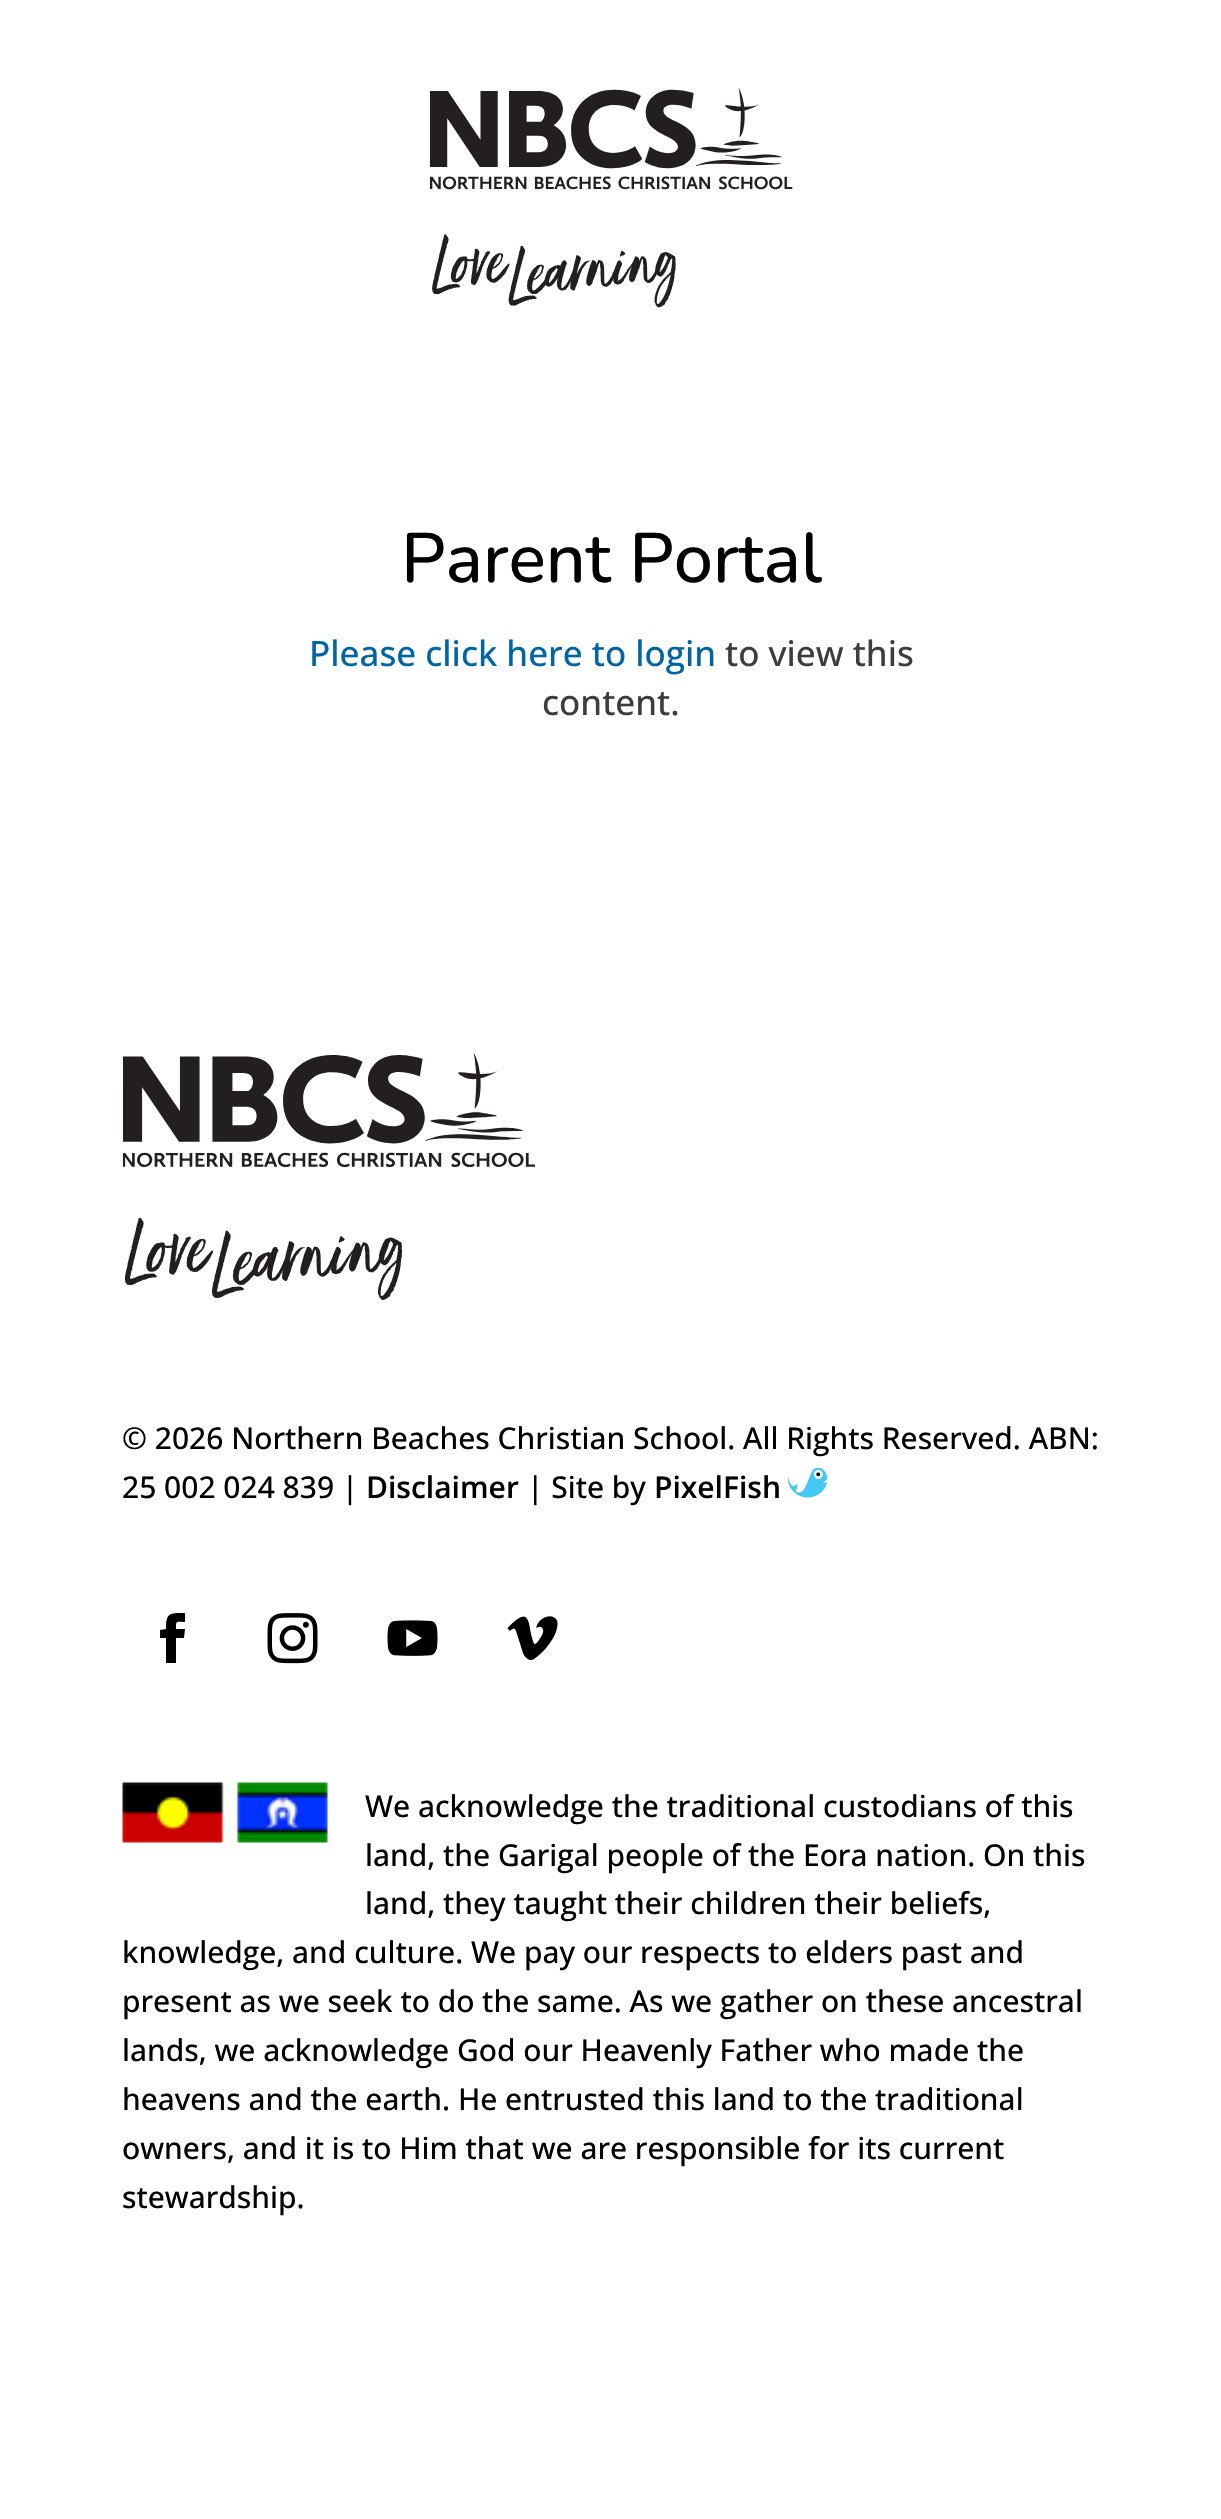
void draw(SkCanvas* canvas) {
	SkPaint paint;
	paint.setAntiAlias(true);
	auto svgPath = [&](const char* data, bool evenOdd = false) {
		SkPath result = *SkParsePath::FromSVGString(data);
		if (evenOdd) result.setFillType(SkPathFillType::kEvenOdd);
		return result;
	};
	canvas->clear(0xffffffff);
	canvas->drawImageRect(SkImages::DeferredFromEncodedData(SkData::MakeFromFileName("img1.png")), SkRect::MakeXYWH(430, 88, 363, 220), SkSamplingOptions());
	SkFont f1(fontMgr->matchFamilyStyle("Nunito", SkFontStyle(500, SkFontStyle::kNormal_Width, SkFontStyle::kUpright_Slant)), 70);
	f1.setSubpixel(true);
	paint.setColor(0xff000000);
	canvas->drawString("Parent Portal", 401, 582, f1, paint);
	SkFont f2(fontMgr->matchFamilyStyle("Open Sans", SkFontStyle(500, SkFontStyle::kNormal_Width, SkFontStyle::kUpright_Slant)), 35);
	f2.setSubpixel(true);
	paint.setColor(0xff0065a4);
	canvas->drawString("Please click here to login", 309, 666, f2, paint);
	paint.setColor(0xff3d3d3d);
	canvas->drawString("to view this", 725, 666, f2, paint);
	canvas->drawString("content.", 542, 715, f2, paint);
	canvas->drawImageRect(SkImages::DeferredFromEncodedData(SkData::MakeFromFileName("img2.png")), SkRect::MakeXYWH(123, 1053, 412, 247), SkSamplingOptions());
	SkFont f3(fontMgr->matchFamilyStyle("Open Sans", SkFontStyle(500, SkFontStyle::kNormal_Width, SkFontStyle::kUpright_Slant)), 30);
	f3.setSubpixel(true);
	paint.setColor(0xff000000);
	canvas->drawString("© 2026 Northern Beaches Christian School. All Rights Reserved. ABN:", 122, 1449, f3, paint);
	canvas->drawString("25 002 024 839 |", 122, 1498, f3, paint);
	SkFont f4(fontMgr->matchFamilyStyle("Open Sans", SkFontStyle(600, SkFontStyle::kNormal_Width, SkFontStyle::kUpright_Slant)), 30);
	f4.setSubpixel(true);
	canvas->drawString("Disclaimer", 366, 1498, f4, paint);
	canvas->drawString("| Site by", 527, 1498, f3, paint);
	canvas->drawString("PixelFish", 654, 1498, f4, paint);
	canvas->drawImageRect(SkImages::DeferredFromEncodedData(SkData::MakeFromFileName("img3.png")), SkRect::MakeXYWH(788, 1468, 40, 30), SkSamplingOptions());
	canvas->drawPath(svgPath("M166 1663H176V1638H184L185 1629H176C176 1620 176 1622 185 1622V1613C169 1613 166 1613 166 1629L160 1630V1638H166Z"), paint);
	canvas->drawImageRect(SkImages::DeferredFromEncodedData(SkData::MakeFromFileName("img4.png")), SkRect::MakeXYWH(267, 1613, 51, 51), SkSamplingOptions());
	canvas->drawImageRect(SkImages::DeferredFromEncodedData(SkData::MakeFromFileName("img5.png")), SkRect::MakeXYWH(387, 1620, 51, 36), SkSamplingOptions());
	canvas->drawImageRect(SkImages::DeferredFromEncodedData(SkData::MakeFromFileName("img6.png")), SkRect::MakeXYWH(507, 1616, 51, 44), SkSamplingOptions());
	canvas->drawImageRect(SkImages::DeferredFromEncodedData(SkData::MakeFromFileName("img7.png")), SkRect::MakeXYWH(122, 1782, 206, 61), SkSamplingOptions());
	canvas->drawString("We acknowledge the traditional custodians of this", 365, 1817, f3, paint);
	canvas->drawString("land, the Garigal people of the Eora nation. On this", 365, 1866, f3, paint);
	canvas->drawString("land, they taught their children their beliefs,", 365, 1914, f3, paint);
	canvas->drawString("knowledge, and culture. We pay our respects to elders past and", 122, 1963, f3, paint);
	canvas->drawString("present as we seek to do the same. As we gather on these ancestral", 122, 2012, f3, paint);
	canvas->drawString("lands, we acknowledge God our Heavenly Father who made the", 122, 2061, f3, paint);
	canvas->drawString("heavens and the earth. He entrusted this land to the traditional", 122, 2110, f3, paint);
	canvas->drawString("owners, and it is to Him that we are responsible for its current", 122, 2159, f3, paint);
	canvas->drawString("stewardship.", 122, 2208, f3, paint);
}
